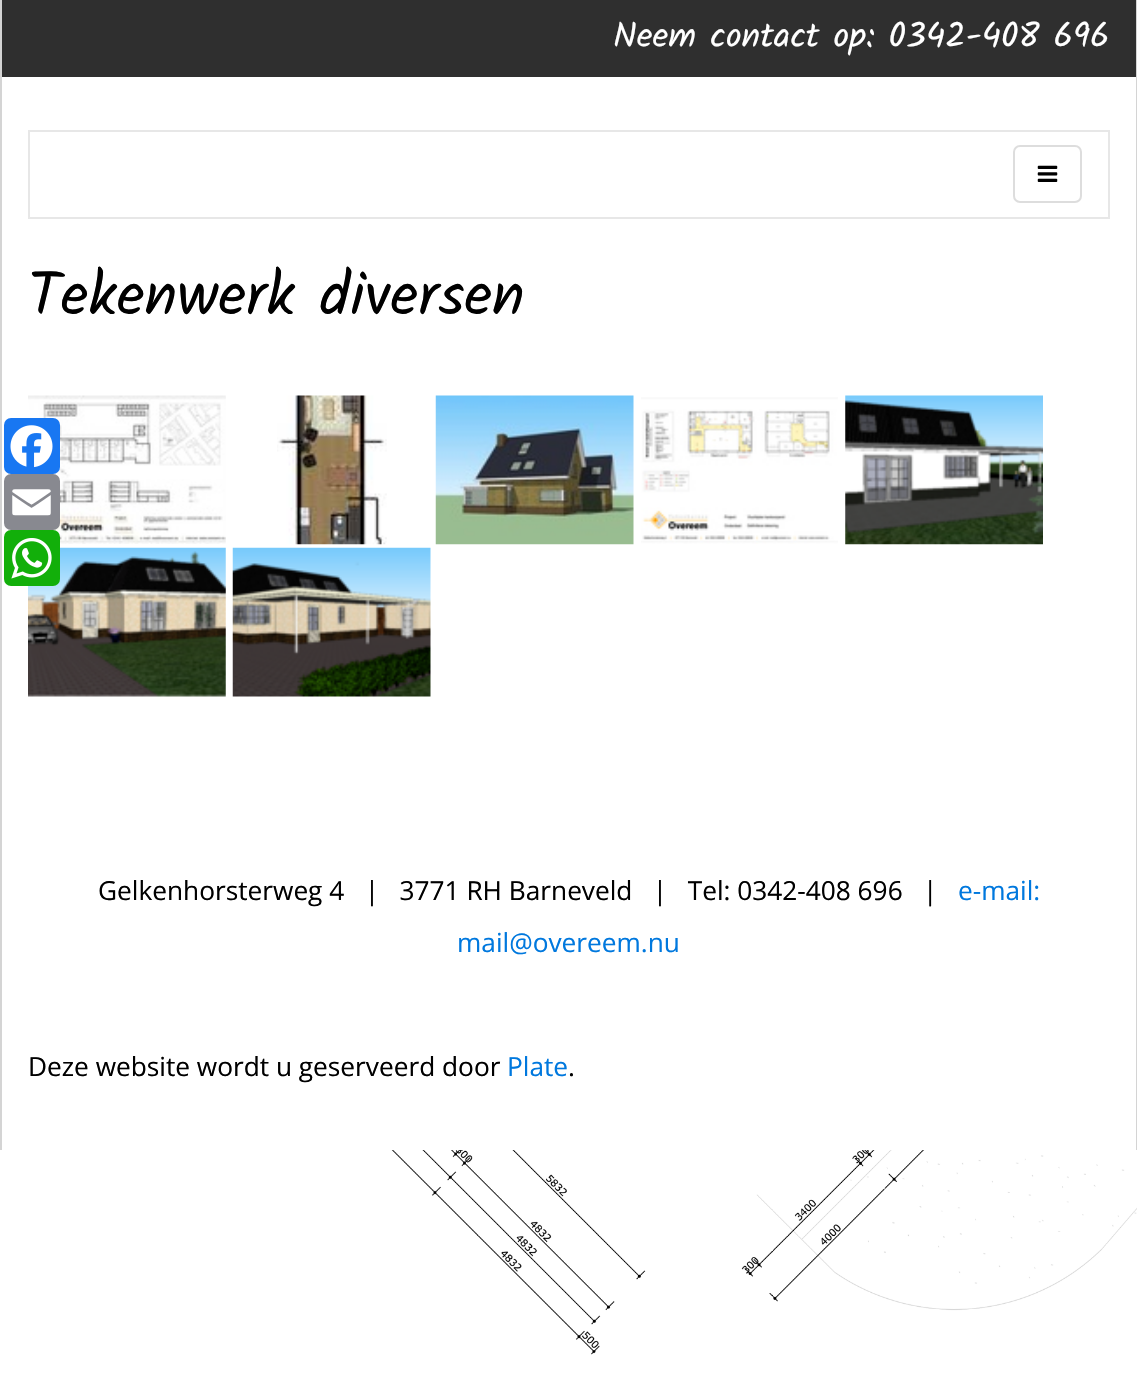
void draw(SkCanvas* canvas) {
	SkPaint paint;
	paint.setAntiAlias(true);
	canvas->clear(0xffffffff);
	canvas->drawImageRect(SkImages::DeferredFromEncodedData(SkData::MakeFromFileName("img1.png")), SkRect::MakeXYWH(41, 1150, 1096, 205), SkSamplingOptions());
	paint.setColor(0xffd4d4d4);
	canvas->drawRect(SkRect::MakeXYWH(1136, 0, 1, 1150), paint);
	canvas->drawRect(SkRect::MakeXYWH(0, 0, 2, 1150), paint);
	paint.setColor(0xff2f2f2f);
	canvas->drawRect(SkRect::MakeXYWH(2, 0, 1134, 77), paint);
	SkFont f1(fontMgr->matchFamilyStyle("Kalam", SkFontStyle::Normal()), 35);
	f1.setSubpixel(true);
	paint.setColor(0xffffffff);
	canvas->drawString("Neem contact op: 0342-408 696", 613, 47, f1, paint);
	paint.setStroke(true);
	paint.setStrokeWidth(2);
	paint.setColor(0xffe7e7e7);
	canvas->drawRect(SkRect::MakeXYWH(29, 131, 1080, 87), paint);
	paint.setColor(0xffdddddd);
	canvas->drawRoundRect(SkRect::MakeXYWH(1014, 146, 67, 56), 6, 6, paint);
	canvas->drawImageRect(SkImages::DeferredFromEncodedData(SkData::MakeFromFileName("img2.png")), SkRect::MakeXYWH(1037, 165, 21, 17), SkSamplingOptions());
	SkFont f2(fontMgr->matchFamilyStyle("Kalam", SkFontStyle::Normal()), 61.25);
	f2.setSubpixel(true);
	paint.setStroke(false);
	paint.setColor(0xff000000);
	canvas->drawString("Tekenwerk diversen", 28, 315, f2, paint);
	canvas->drawImageRect(SkImages::DeferredFromEncodedData(SkData::MakeFromFileName("img3.png")), SkRect::MakeXYWH(28, 395, 198, 149), SkSamplingOptions());
	canvas->drawImageRect(SkImages::DeferredFromEncodedData(SkData::MakeFromFileName("img4.png")), SkRect::MakeXYWH(277, 395, 110, 150), SkSamplingOptions());
	canvas->drawImageRect(SkImages::DeferredFromEncodedData(SkData::MakeFromFileName("img5.png")), SkRect::MakeXYWH(435, 395, 199, 150), SkSamplingOptions());
	canvas->drawImageRect(SkImages::DeferredFromEncodedData(SkData::MakeFromFileName("img6.png")), SkRect::MakeXYWH(641, 397, 197, 147), SkSamplingOptions());
	canvas->drawImageRect(SkImages::DeferredFromEncodedData(SkData::MakeFromFileName("img7.png")), SkRect::MakeXYWH(845, 395, 198, 150), SkSamplingOptions());
	canvas->drawImageRect(SkImages::DeferredFromEncodedData(SkData::MakeFromFileName("img8.png")), SkRect::MakeXYWH(28, 547, 198, 150), SkSamplingOptions());
	canvas->drawImageRect(SkImages::DeferredFromEncodedData(SkData::MakeFromFileName("img9.png")), SkRect::MakeXYWH(232, 547, 199, 150), SkSamplingOptions());
	SkFont f3(fontMgr->matchFamilyStyle("Open Sans", SkFontStyle::Normal()), 26.25);
	f3.setSubpixel(true);
	canvas->drawString("Gelkenhorsterweg 4   |   3771 RH Barneveld   |   Tel: 0342-408 696   |", 98, 900, f3, paint);
	paint.setColor(0xff0078de);
	canvas->drawString("e-mail:", 958, 900, f3, paint);
	canvas->drawString("mail@overeem.nu", 457, 952, f3, paint);
	paint.setColor(0xff000000);
	canvas->drawString("Deze website wordt u geserveerd door", 28, 1076, f3, paint);
	paint.setColor(0xff0078de);
	canvas->drawString("Plate", 507, 1076, f3, paint);
	paint.setColor(0xff000000);
	canvas->drawString(".", 568, 1076, f3, paint);
	paint.setColor(0xff1877f2);
	canvas->drawRoundRect(SkRect::MakeXYWH(4, 418, 56, 56), 7, 7, paint);
	canvas->drawImageRect(SkImages::DeferredFromEncodedData(SkData::MakeFromFileName("img10.png")), SkRect::MakeXYWH(10, 425, 43, 43), SkSamplingOptions());
	paint.setColor(0xff888990);
	canvas->drawRoundRect(SkRect::MakeXYWH(4, 474, 56, 56), 7, 7, paint);
	canvas->drawImageRect(SkImages::DeferredFromEncodedData(SkData::MakeFromFileName("img11.png")), SkRect::MakeXYWH(12, 489, 39, 27), SkSamplingOptions());
	paint.setColor(0xff12af0a);
	canvas->drawRoundRect(SkRect::MakeXYWH(4, 530, 56, 56), 7, 7, paint);
	canvas->drawImageRect(SkImages::DeferredFromEncodedData(SkData::MakeFromFileName("img12.png")), SkRect::MakeXYWH(11, 538, 41, 41), SkSamplingOptions());
}
